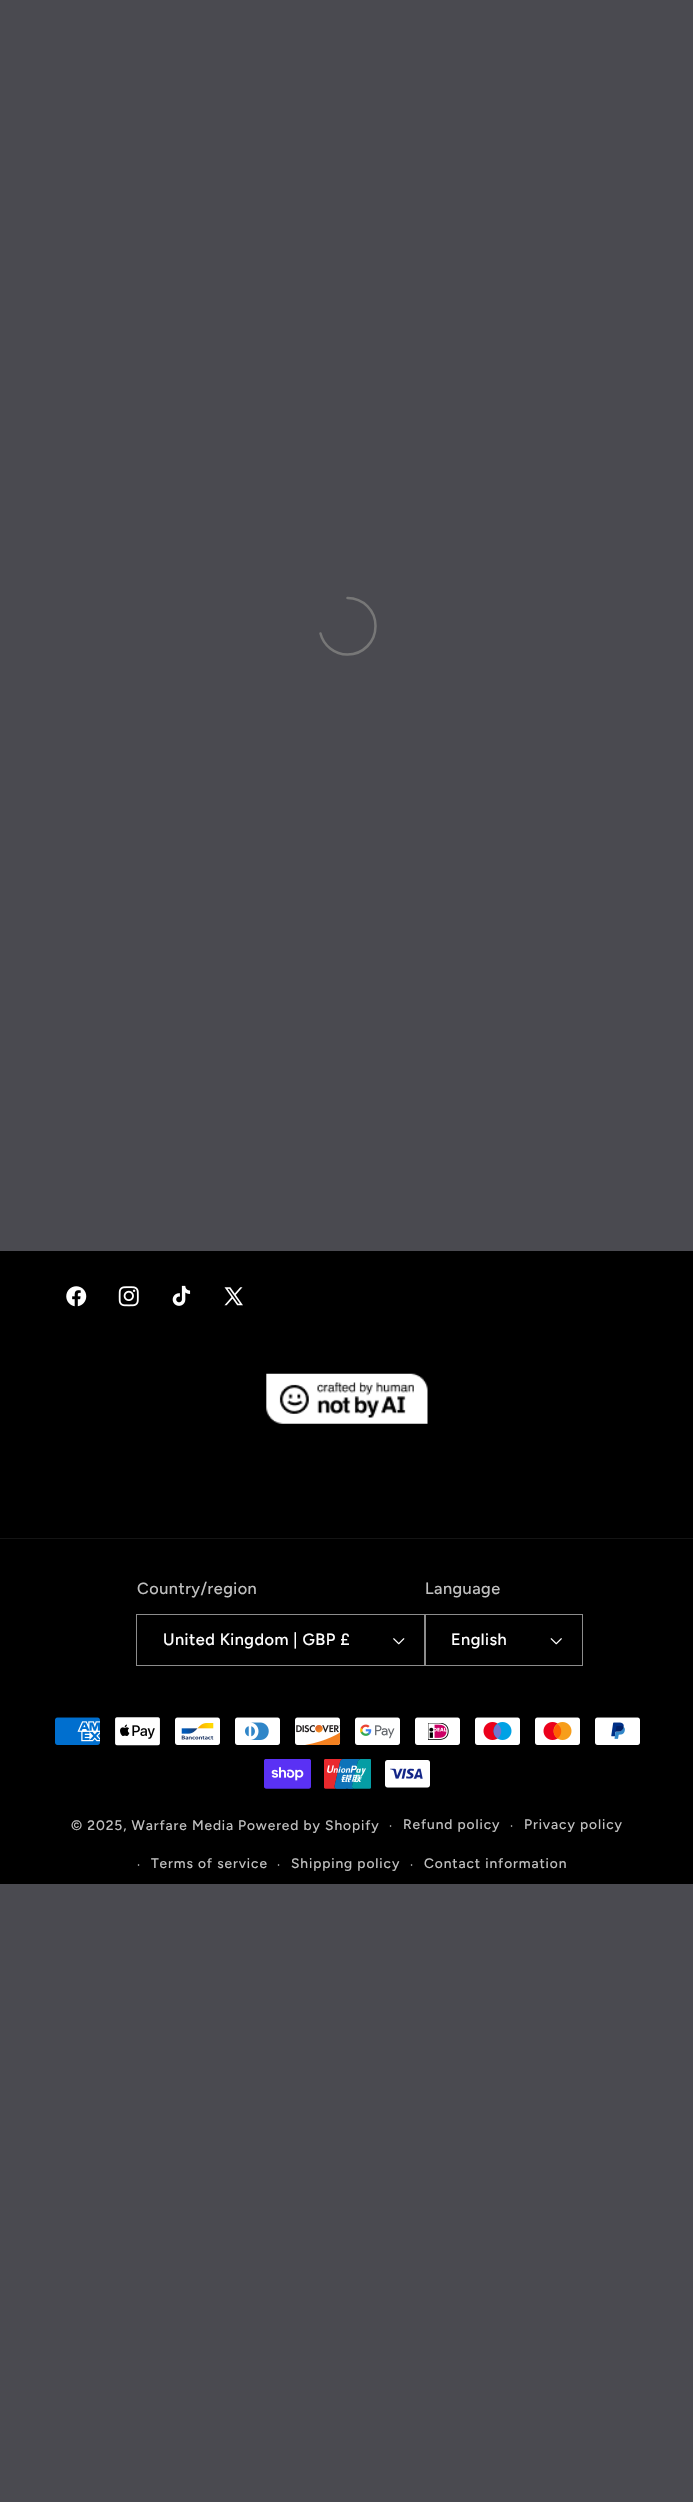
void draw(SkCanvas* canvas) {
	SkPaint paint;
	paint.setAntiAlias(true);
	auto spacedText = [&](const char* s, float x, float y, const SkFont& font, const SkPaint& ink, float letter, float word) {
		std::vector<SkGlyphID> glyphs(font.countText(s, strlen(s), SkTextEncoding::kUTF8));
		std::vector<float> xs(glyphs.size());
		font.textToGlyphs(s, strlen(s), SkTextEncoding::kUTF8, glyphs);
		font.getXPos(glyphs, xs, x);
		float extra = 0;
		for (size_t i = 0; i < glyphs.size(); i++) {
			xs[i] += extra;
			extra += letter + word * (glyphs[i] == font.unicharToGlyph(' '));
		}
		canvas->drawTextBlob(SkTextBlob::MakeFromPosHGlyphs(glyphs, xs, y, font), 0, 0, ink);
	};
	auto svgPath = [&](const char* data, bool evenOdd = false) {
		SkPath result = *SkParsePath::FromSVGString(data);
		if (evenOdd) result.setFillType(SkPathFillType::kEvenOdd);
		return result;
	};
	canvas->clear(0xff4a4a50);
	paint.setStroke(true);
	paint.setStrokeWidth(2.5);
	paint.setStrokeCap(SkPaint::kRound_Cap);
	paint.setColor(0xff777777);
	canvas->drawPath(svgPath("M347.5 598C363 598 375.5 610.5 375.5 626C375.5 642 363 654.5 347.5 654.5C334.5 654.5 323.5 645.5 320.5 633.5"), paint);
	paint.setStroke(false);
	paint.setColor(0xff000000);
	canvas->drawRect(SkRect::MakeXYWH(0, 1251, 693, 633), paint);
	canvas->drawImageRect(SkImages::DeferredFromEncodedData(SkData::MakeFromFileName("img1.png")), SkRect::MakeXYWH(66, 1286, 21, 21), SkSamplingOptions());
	canvas->drawImageRect(SkImages::DeferredFromEncodedData(SkData::MakeFromFileName("img2.png")), SkRect::MakeXYWH(118, 1286, 21, 21), SkSamplingOptions());
	canvas->drawImageRect(SkImages::DeferredFromEncodedData(SkData::MakeFromFileName("img3.png")), SkRect::MakeXYWH(172, 1285, 19, 21), SkSamplingOptions());
	canvas->drawImageRect(SkImages::DeferredFromEncodedData(SkData::MakeFromFileName("img4.png")), SkRect::MakeXYWH(224, 1287, 19, 19), SkSamplingOptions());
	canvas->drawImageRect(SkImages::DeferredFromEncodedData(SkData::MakeFromFileName("img5.png")), SkRect::MakeXYWH(266, 1373, 162, 51), SkSamplingOptions());
	paint.setColor(0xff141414);
	canvas->drawRect(SkRect::MakeXYWH(0, 1538, 693, 1), paint);
	SkFont f1(fontMgr->matchFamilyStyle("Figtree", SkFontStyle(500, SkFontStyle::kNormal_Width, SkFontStyle::kUpright_Slant)), 16.25);
	f1.setSubpixel(true);
	paint.setColor(0xffbfbfbf);
	spacedText("Country/region", 137, 1594, f1, paint, 0.5, 0);
	canvas->drawImageRect(SkImages::DeferredFromEncodedData(SkData::MakeFromFileName("img6.png")), SkRect::MakeXYWH(393, 1638, 12, 7), SkSamplingOptions());
	paint.setStroke(true);
	paint.setStrokeWidth(1);
	paint.setStrokeCap(SkPaint::kButt_Cap);
	paint.setColor(0xff8c8c8c);
	canvas->drawRect(SkRect::MakeXYWH(136.5, 1614.5, 288, 51), paint);
	paint.setStroke(false);
	paint.setColor(0xffffffff);
	spacedText("United Kingdom | GBP £", 163, 1645, f1, paint, 0.5, 0);
	paint.setColor(0xffbfbfbf);
	spacedText("Language", 425, 1594, f1, paint, 0.5, 0);
	canvas->drawImageRect(SkImages::DeferredFromEncodedData(SkData::MakeFromFileName("img7.png")), SkRect::MakeXYWH(550, 1638, 12, 7), SkSamplingOptions());
	paint.setStroke(true);
	paint.setColor(0xff8c8c8c);
	canvas->drawRect(SkRect::MakeXYWH(425.5, 1614.5, 157, 51), paint);
	paint.setStroke(false);
	paint.setColor(0xffffffff);
	spacedText("English", 451, 1645, f1, paint, 0.5, 0);
	canvas->drawImageRect(SkImages::DeferredFromEncodedData(SkData::MakeFromFileName("img8.png")), SkRect::MakeXYWH(55, 1717, 45, 28), SkSamplingOptions());
	canvas->drawImageRect(SkImages::DeferredFromEncodedData(SkData::MakeFromFileName("img9.png")), SkRect::MakeXYWH(115, 1717, 45, 29), SkSamplingOptions());
	canvas->drawImageRect(SkImages::DeferredFromEncodedData(SkData::MakeFromFileName("img10.png")), SkRect::MakeXYWH(175, 1717, 45, 28), SkSamplingOptions());
	canvas->drawImageRect(SkImages::DeferredFromEncodedData(SkData::MakeFromFileName("img11.png")), SkRect::MakeXYWH(235, 1717, 45, 28), SkSamplingOptions());
	canvas->drawImageRect(SkImages::DeferredFromEncodedData(SkData::MakeFromFileName("img12.png")), SkRect::MakeXYWH(295, 1717, 46, 28), SkSamplingOptions());
	canvas->drawImageRect(SkImages::DeferredFromEncodedData(SkData::MakeFromFileName("img13.png")), SkRect::MakeXYWH(355, 1717, 45, 28), SkSamplingOptions());
	canvas->drawImageRect(SkImages::DeferredFromEncodedData(SkData::MakeFromFileName("img14.png")), SkRect::MakeXYWH(415, 1717, 45, 28), SkSamplingOptions());
	canvas->drawImageRect(SkImages::DeferredFromEncodedData(SkData::MakeFromFileName("img15.png")), SkRect::MakeXYWH(475, 1717, 45, 28), SkSamplingOptions());
	canvas->drawImageRect(SkImages::DeferredFromEncodedData(SkData::MakeFromFileName("img16.png")), SkRect::MakeXYWH(535, 1717, 45, 28), SkSamplingOptions());
	canvas->drawImageRect(SkImages::DeferredFromEncodedData(SkData::MakeFromFileName("img17.png")), SkRect::MakeXYWH(595, 1717, 45, 28), SkSamplingOptions());
	canvas->drawImageRect(SkImages::DeferredFromEncodedData(SkData::MakeFromFileName("img18.png")), SkRect::MakeXYWH(264, 1759, 47, 30), SkSamplingOptions());
	canvas->drawImageRect(SkImages::DeferredFromEncodedData(SkData::MakeFromFileName("img19.png")), SkRect::MakeXYWH(324, 1759, 47, 30), SkSamplingOptions());
	canvas->drawImageRect(SkImages::DeferredFromEncodedData(SkData::MakeFromFileName("img20.png")), SkRect::MakeXYWH(385, 1760, 45, 28), SkSamplingOptions());
	SkFont f2(fontMgr->matchFamilyStyle("Figtree", SkFontStyle(500, SkFontStyle::kNormal_Width, SkFontStyle::kUpright_Slant)), 12);
	f2.setSubpixel(true);
	paint.setColor(0xffbfbfbf);
	spacedText("·", 389, 1830, f2, paint, 0.9, 0);
	SkFont f3(fontMgr->matchFamilyStyle("Figtree", SkFontStyle(500, SkFontStyle::kNormal_Width, SkFontStyle::kUpright_Slant)), 13.75);
	f3.setSubpixel(true);
	spacedText("Refund policy", 403, 1829, f3, paint, 0.9, 0);
	spacedText("·", 510, 1830, f2, paint, 0.9, 0);
	spacedText("Privacy policy", 524, 1829, f3, paint, 0.9, 0);
	spacedText("·", 137, 1869, f2, paint, 0.9, 0);
	spacedText("Terms of service", 151, 1868, f3, paint, 0.9, 0);
	spacedText("·", 277, 1869, f2, paint, 0.9, 0);
	spacedText("Shipping policy", 291, 1868, f3, paint, 0.9, 0);
	spacedText("·", 410, 1869, f2, paint, 0.9, 0);
	spacedText("Contact information", 424, 1868, f3, paint, 0.9, 0);
	spacedText("© 2025, Warfare Media", 71, 1830, f3, paint, 0.9, 0);
	spacedText("Powered by Shopify", 238, 1830, f3, paint, 0.9, 0);
}
